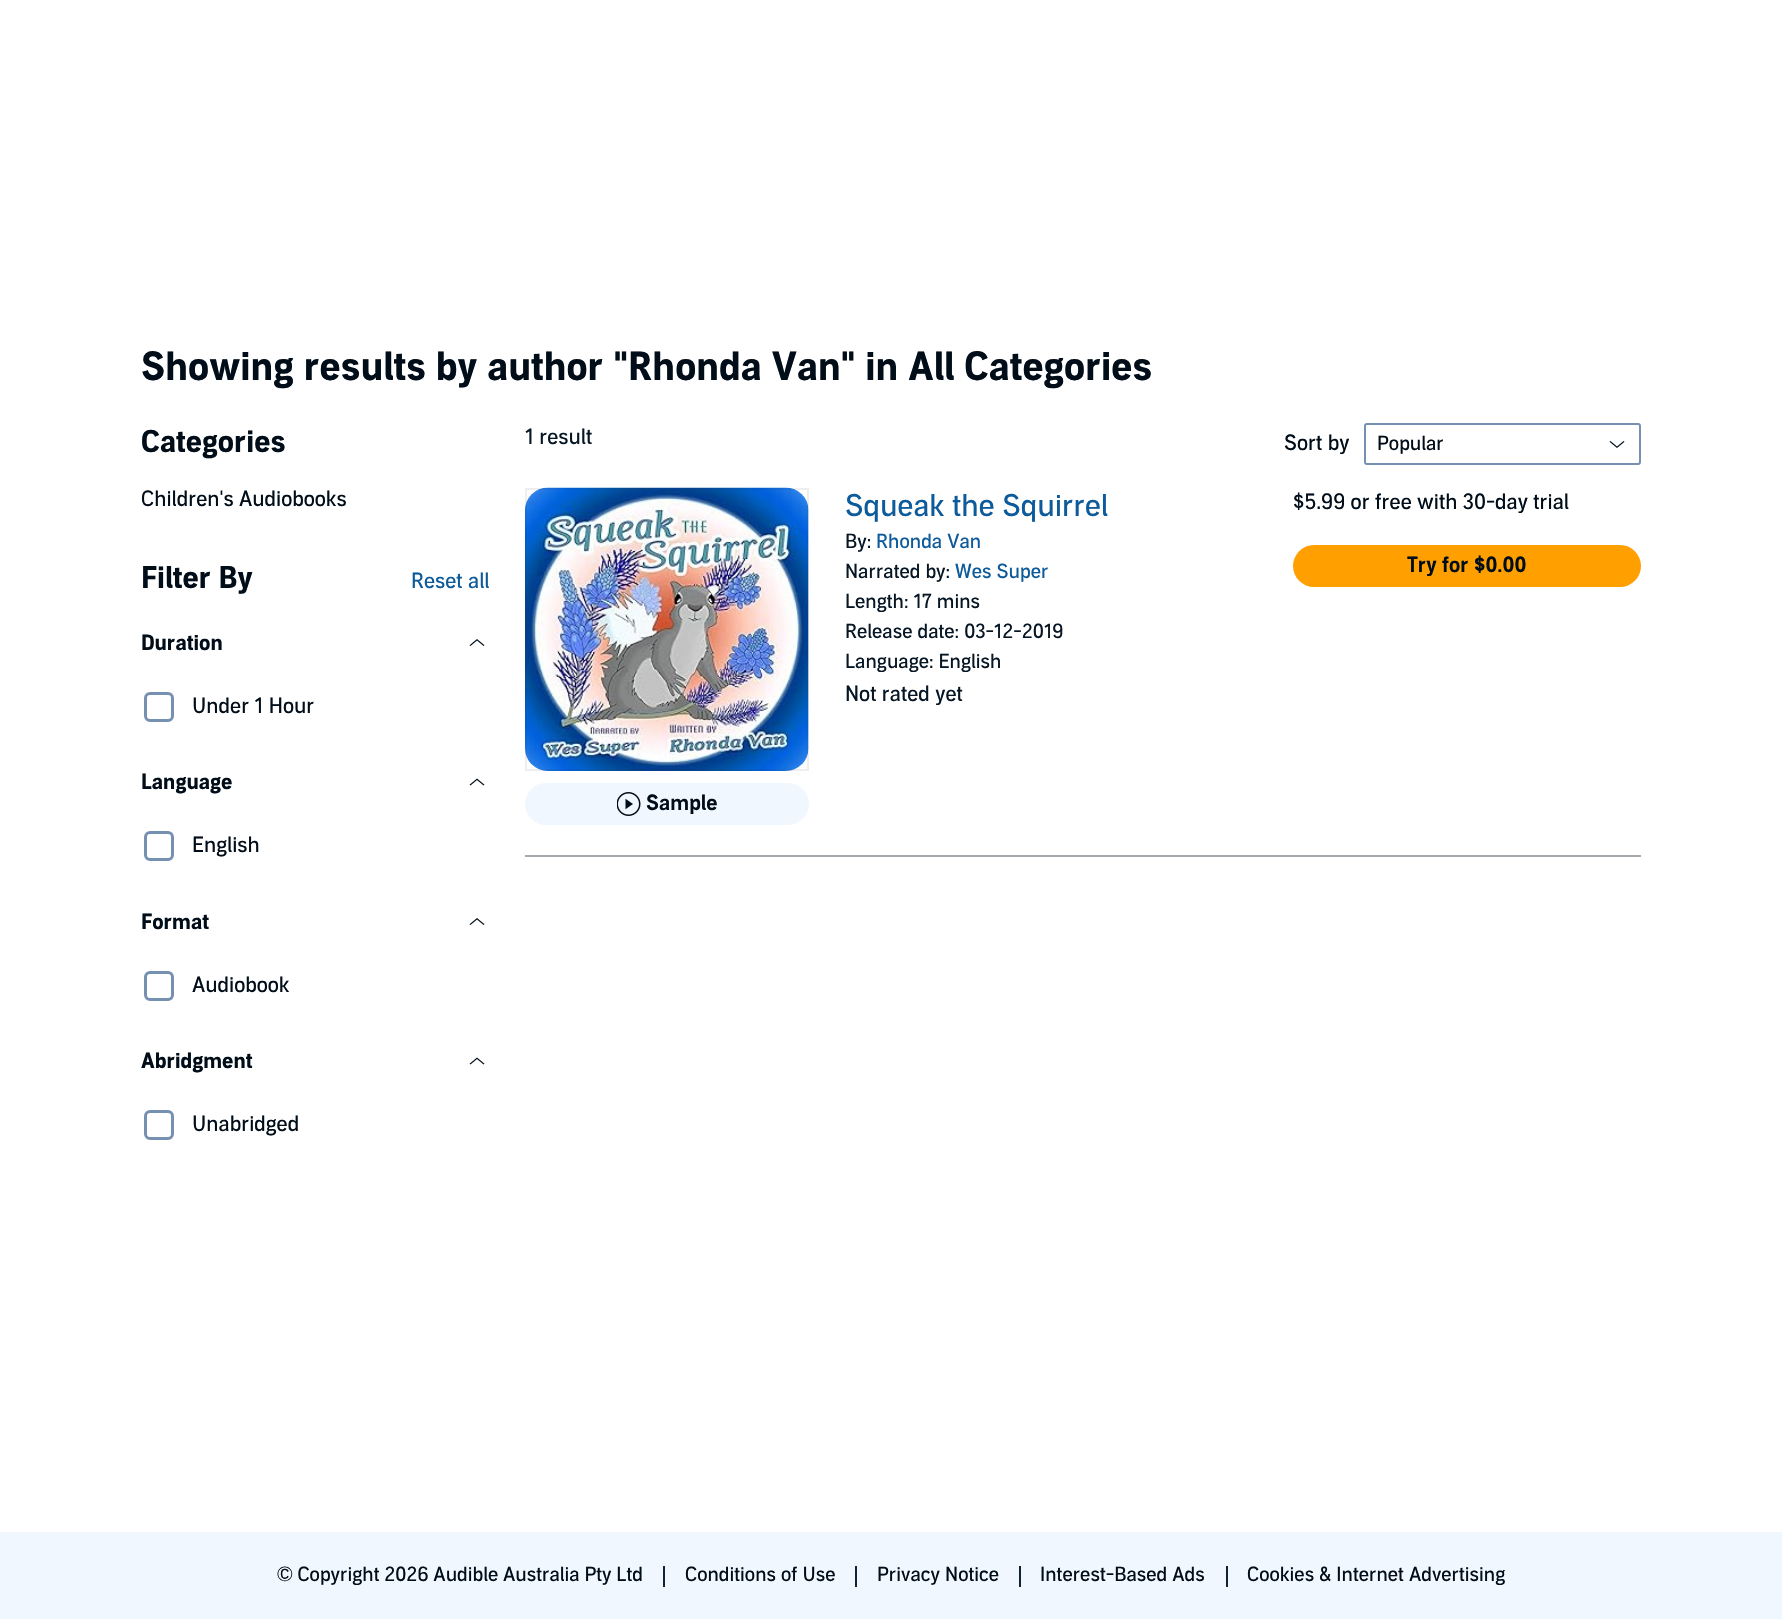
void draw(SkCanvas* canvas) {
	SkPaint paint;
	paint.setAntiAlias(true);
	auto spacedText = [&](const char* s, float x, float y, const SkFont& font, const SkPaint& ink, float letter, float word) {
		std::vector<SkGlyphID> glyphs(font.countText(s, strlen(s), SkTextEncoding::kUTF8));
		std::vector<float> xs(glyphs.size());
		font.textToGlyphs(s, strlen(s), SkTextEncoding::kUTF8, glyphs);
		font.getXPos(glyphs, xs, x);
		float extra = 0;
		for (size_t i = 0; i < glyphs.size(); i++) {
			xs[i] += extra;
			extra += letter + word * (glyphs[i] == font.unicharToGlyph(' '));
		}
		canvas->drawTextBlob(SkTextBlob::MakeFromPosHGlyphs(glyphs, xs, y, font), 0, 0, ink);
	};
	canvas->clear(0xffffffff);
	SkFont f1(fontMgr->matchFamilyStyle("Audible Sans", SkFontStyle::Bold()), 39);
	f1.setSubpixel(true);
	paint.setColor(0xff010e19);
	canvas->drawString("Showing results by author \"Rhonda Van\" in All Categories", 141, 380, f1, paint);
	SkFont f2(fontMgr->matchFamilyStyle("Audible Sans", SkFontStyle::Bold()), 30);
	f2.setSubpixel(true);
	canvas->drawString("Categories", 141, 452, f2, paint);
	SkFont f3(fontMgr->matchFamilyStyle("Audible Sans", SkFontStyle::Normal()), 21);
	f3.setSubpixel(true);
	canvas->drawString("Children's Audiobooks", 141, 506, f3, paint);
	canvas->drawString("Filter By", 141, 588, f2, paint);
	paint.setColor(0xff0e5b9b);
	canvas->drawString("Reset all", 411, 588, f3, paint);
	SkFont f4(fontMgr->matchFamilyStyle("Audible Sans", SkFontStyle::Bold()), 21);
	f4.setSubpixel(true);
	paint.setColor(0xff010e19);
	canvas->drawString("Duration", 141, 650, f4, paint);
	canvas->drawImageRect(SkImages::DeferredFromEncodedData(SkData::MakeFromFileName("img1.png")), SkRect::MakeXYWH(469, 639, 16, 7), SkSamplingOptions());
	paint.setStroke(true);
	paint.setStrokeWidth(3);
	paint.setColor(0xff7690b2);
	canvas->drawRoundRect(SkRect::MakeXYWH(145.5, 693.5, 27, 27), 4.5, 4.5, paint);
	paint.setStroke(false);
	paint.setColor(0xff010e19);
	canvas->drawString("Under 1 Hour", 192, 713, f3, paint);
	canvas->drawString("Language", 141, 789, f4, paint);
	canvas->drawImageRect(SkImages::DeferredFromEncodedData(SkData::MakeFromFileName("img2.png")), SkRect::MakeXYWH(469, 778, 16, 8), SkSamplingOptions());
	paint.setStroke(true);
	paint.setColor(0xff7690b2);
	canvas->drawRoundRect(SkRect::MakeXYWH(145.5, 832.5, 27, 27), 4.5, 4.5, paint);
	paint.setStroke(false);
	paint.setColor(0xff010e19);
	canvas->drawString("English", 192, 852, f3, paint);
	canvas->drawString("Format", 141, 929, f4, paint);
	canvas->drawImageRect(SkImages::DeferredFromEncodedData(SkData::MakeFromFileName("img1.png")), SkRect::MakeXYWH(469, 918, 16, 7), SkSamplingOptions());
	paint.setStroke(true);
	paint.setColor(0xff7690b2);
	canvas->drawRoundRect(SkRect::MakeXYWH(145.5, 972.5, 27, 27), 4.5, 4.5, paint);
	paint.setStroke(false);
	paint.setColor(0xff010e19);
	canvas->drawString("Audiobook", 192, 992, f3, paint);
	canvas->drawString("Abridgment", 141, 1068, f4, paint);
	canvas->drawImageRect(SkImages::DeferredFromEncodedData(SkData::MakeFromFileName("img2.png")), SkRect::MakeXYWH(469, 1057, 16, 8), SkSamplingOptions());
	paint.setStroke(true);
	paint.setColor(0xff7690b2);
	canvas->drawRoundRect(SkRect::MakeXYWH(145.5, 1111.5, 27, 27), 4.5, 4.5, paint);
	paint.setStroke(false);
	paint.setColor(0xff010e19);
	canvas->drawString("Unabridged", 192, 1131, f3, paint);
	paint.setColor(0xff061624);
	canvas->drawString("1 result", 525, 444, f3, paint);
	paint.setColor(0xff010e19);
	canvas->drawString("Sort by", 1284, 450, f3, paint);
	paint.setStroke(true);
	paint.setStrokeWidth(2);
	paint.setColor(0xff7690b2);
	canvas->drawRoundRect(SkRect::MakeXYWH(1365, 424, 275, 40), 2, 2, paint);
	SkFont f5(fontMgr->matchFamilyStyle("Audible Sans", SkFontStyle::Normal()), 19.5);
	f5.setSubpixel(true);
	paint.setStroke(false);
	paint.setColor(0xff010e19);
	canvas->drawString("Popular", 1377, 450, f5, paint);
	canvas->drawImageRect(SkImages::DeferredFromEncodedData(SkData::MakeFromFileName("img3.png")), SkRect::MakeXYWH(1609, 441, 16, 7), SkSamplingOptions());
	SkFont f6(fontMgr->matchFamilyStyle("Audible Sans", SkFontStyle::Normal()), 30);
	f6.setSubpixel(true);
	paint.setColor(0xff0e5b9b);
	canvas->drawString("Squeak the Squirrel", 845, 516, f6, paint);
	paint.setColor(0xff061624);
	canvas->drawString("By:", 845, 548, f5, paint);
	paint.setColor(0xff0e5b9b);
	canvas->drawString("Rhonda Van", 876, 548, f5, paint);
	paint.setColor(0xff061624);
	canvas->drawString("Narrated by:", 845, 578, f5, paint);
	paint.setColor(0xff0e5b9b);
	canvas->drawString("Wes Super", 955, 578, f5, paint);
	paint.setColor(0xff061624);
	canvas->drawString("Length: 17 mins", 845, 608, f5, paint);
	canvas->drawString("Release date: 03-12-2019", 845, 638, f5, paint);
	canvas->drawString("Language: English", 845, 668, f5, paint);
	canvas->drawString("Not rated yet", 845, 701, f3, paint);
	canvas->drawImageRect(SkImages::DeferredFromEncodedData(SkData::MakeFromFileName("img4.png")), SkRect::MakeXYWH(525, 487, 284, 284), SkSamplingOptions());
	paint.setStroke(true);
	paint.setColor(0x14212325);
	canvas->drawRect(SkRect::MakeXYWH(526, 489, 282, 281), paint);
	paint.setStroke(false);
	paint.setColor(0xfff1f7fe);
	canvas->drawRoundRect(SkRect::MakeXYWH(525, 783, 284, 42), 21, 21, paint);
	canvas->drawImageRect(SkImages::DeferredFromEncodedData(SkData::MakeFromFileName("img5.png")), SkRect::MakeXYWH(617, 792, 24, 24), SkSamplingOptions());
	SkFont f7(fontMgr->matchFamilyStyle("Audible Sans", SkFontStyle(600, SkFontStyle::kNormal_Width, SkFontStyle::kUpright_Slant)), 21);
	f7.setSubpixel(true);
	paint.setColor(0xff010e19);
	canvas->drawString("Sample", 646, 810, f7, paint);
	canvas->drawString("$5.99 or free with 30-day trial", 1293, 509, f3, paint);
	paint.setColor(0xffffa000);
	canvas->drawRoundRect(SkRect::MakeXYWH(1293, 545, 348, 42), 21, 21, paint);
	paint.setColor(0xff010e19);
	canvas->drawString("Try for $0.00", 1407, 572, f7, paint);
	paint.setColor(0xffa6abaf);
	canvas->drawRect(SkRect::MakeXYWH(525, 855, 1116, 2), paint);
	paint.setColor(0xfff1f7fe);
	canvas->drawRect(SkRect::MakeXYWH(0, 1532, 1782, 87), paint);
	paint.setColor(0xff010e19);
	spacedText("© Copyright 2026 Audible Australia Pty Ltd", 277, 1581, f5, paint, 0, -0.25);
	paint.setColor(0xff112235);
	canvas->drawRect(SkRect::MakeXYWH(663, 1566, 2, 21), paint);
	paint.setColor(0xff010e19);
	canvas->drawString("Conditions of Use", 685, 1581, f5, paint);
	paint.setColor(0xff112235);
	canvas->drawRect(SkRect::MakeXYWH(855, 1566, 2, 21), paint);
	paint.setColor(0xff010e19);
	canvas->drawString("Privacy Notice", 877, 1581, f5, paint);
	paint.setColor(0xff112235);
	canvas->drawRect(SkRect::MakeXYWH(1019, 1566, 2, 21), paint);
	paint.setColor(0xff010e19);
	canvas->drawString("Interest-Based Ads", 1040, 1581, f5, paint);
	paint.setColor(0xff112235);
	canvas->drawRect(SkRect::MakeXYWH(1226, 1566, 2, 21), paint);
	paint.setColor(0xff010e19);
	canvas->drawString("Cookies & Internet Advertising", 1247, 1581, f5, paint);
}
